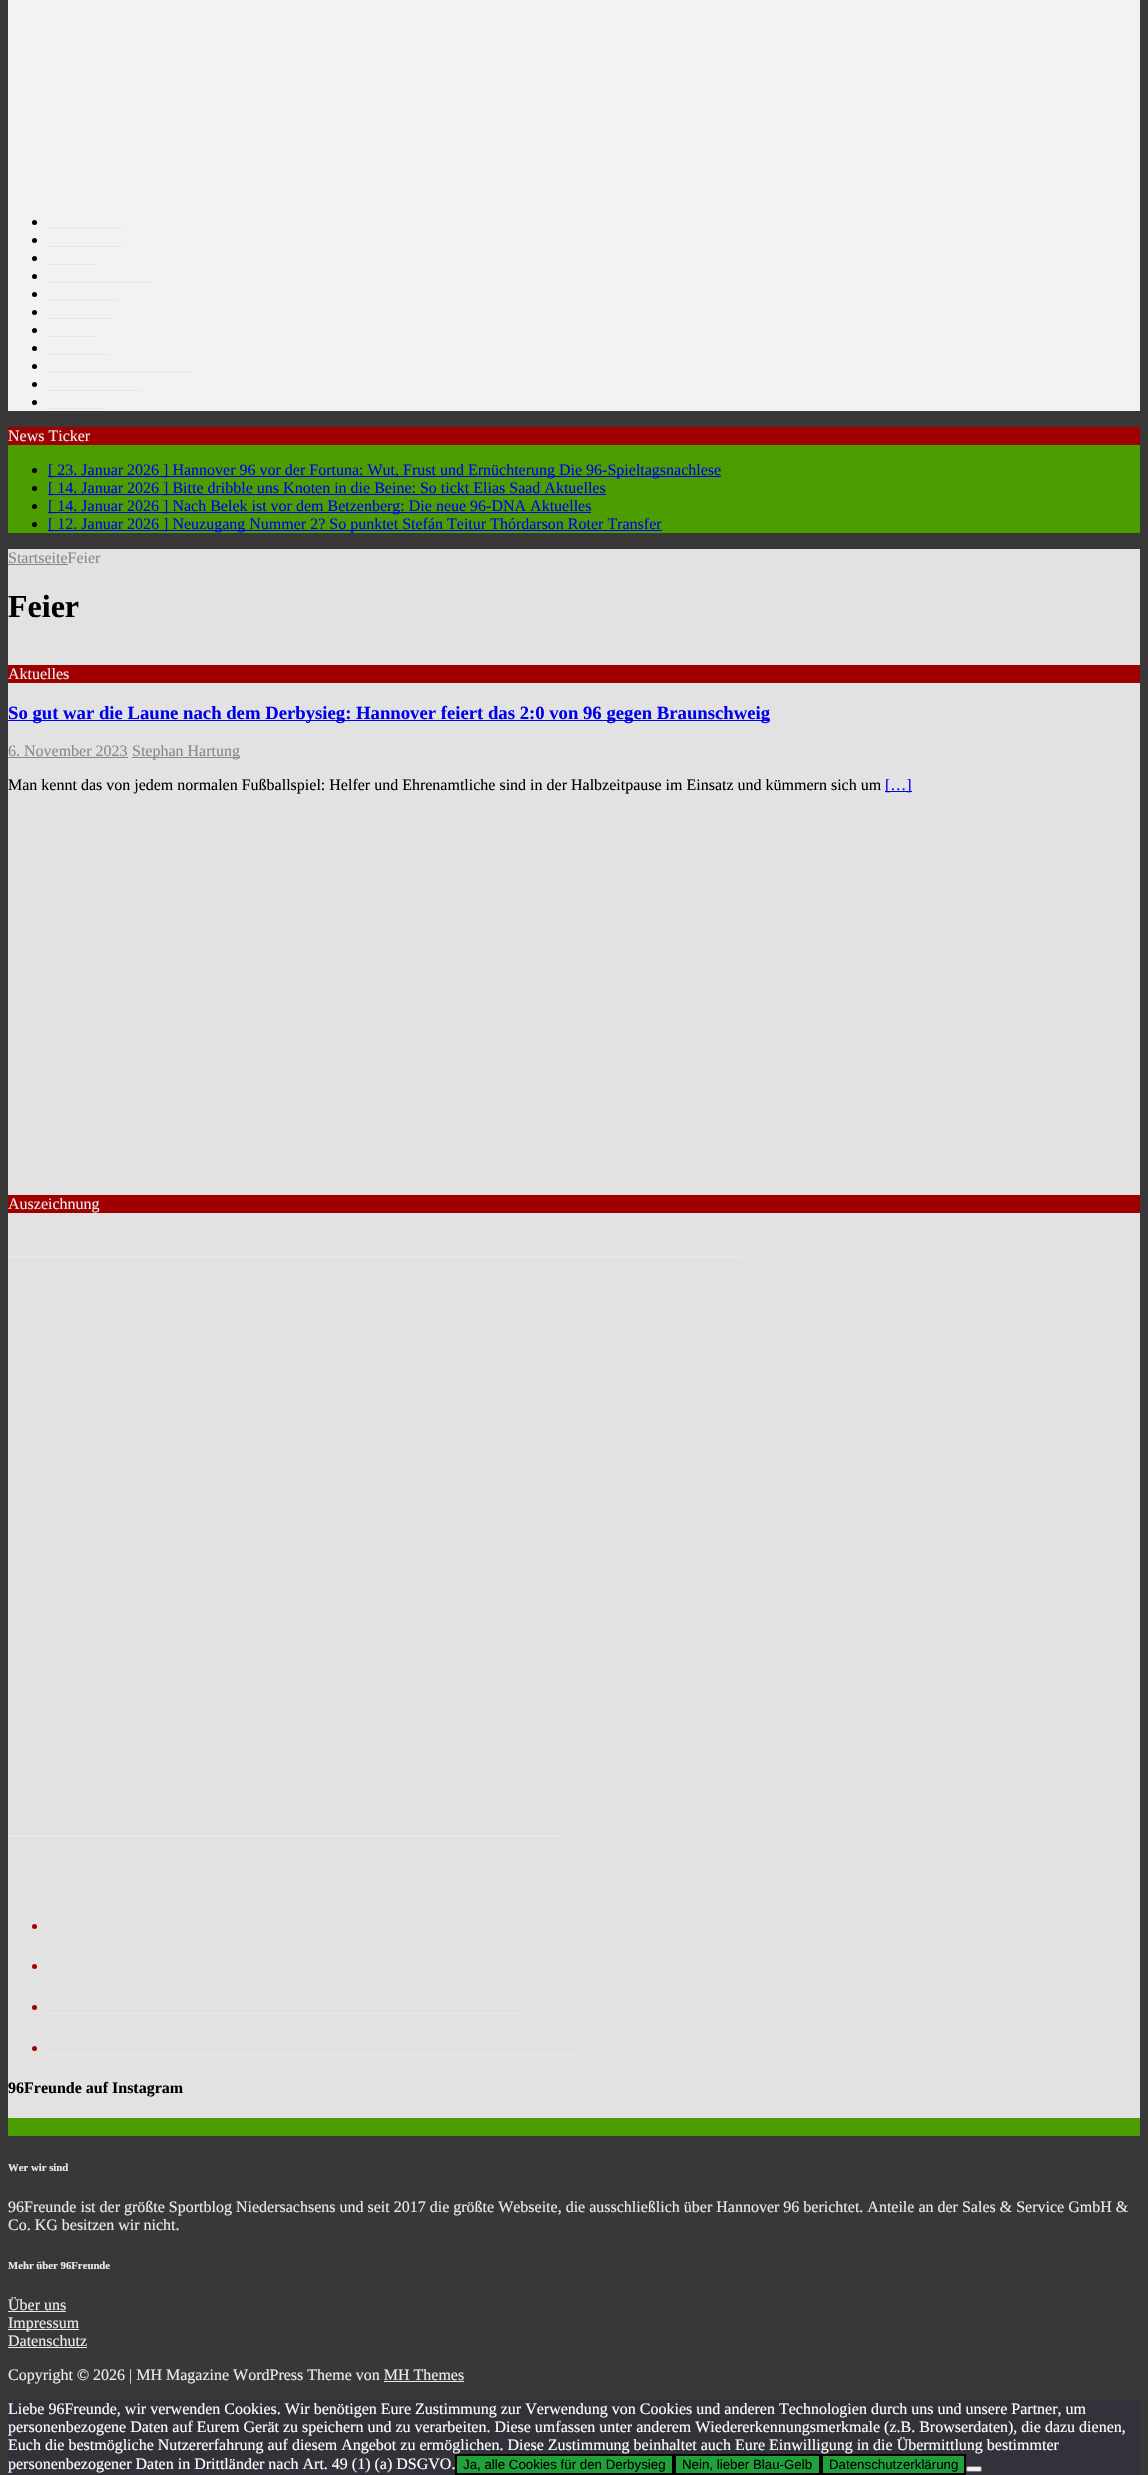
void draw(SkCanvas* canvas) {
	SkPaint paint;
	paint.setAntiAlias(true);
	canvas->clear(0xff383838);
	paint.setColor(0xfff2f2f2);
	canvas->drawRect(SkRect::MakeXYWH(8, 0, 1132, 411), paint);
	paint.setColor(0xff000000);
	canvas->drawCircle(34.5, 222.5, 2.5, paint);
	paint.setColor(0xffe8e8e8);
	canvas->drawRect(SkRect::MakeXYWH(48, 228, 76, 1), paint);
	paint.setColor(0xff000000);
	canvas->drawCircle(34.5, 240.5, 2.5, paint);
	paint.setColor(0xffe8e8e8);
	canvas->drawRect(SkRect::MakeXYWH(48, 246, 76, 1), paint);
	paint.setColor(0xff000000);
	canvas->drawCircle(34.5, 258.5, 2.5, paint);
	paint.setColor(0xffe8e8e8);
	canvas->drawRect(SkRect::MakeXYWH(48, 264, 48, 1), paint);
	paint.setColor(0xff000000);
	canvas->drawCircle(34.5, 276.5, 2.5, paint);
	paint.setColor(0xffe8e8e8);
	canvas->drawRect(SkRect::MakeXYWH(48, 282, 106, 1), paint);
	paint.setColor(0xff000000);
	canvas->drawCircle(34.5, 294.5, 2.5, paint);
	paint.setColor(0xffe8e8e8);
	canvas->drawRect(SkRect::MakeXYWH(48, 300, 69, 1), paint);
	paint.setColor(0xff000000);
	canvas->drawCircle(34.5, 312.5, 2.5, paint);
	paint.setColor(0xffe8e8e8);
	canvas->drawRect(SkRect::MakeXYWH(48, 318, 64, 1), paint);
	paint.setColor(0xff000000);
	canvas->drawCircle(34.5, 330.5, 2.5, paint);
	paint.setColor(0xffe8e8e8);
	canvas->drawRect(SkRect::MakeXYWH(48, 336, 48, 1), paint);
	paint.setColor(0xff000000);
	canvas->drawCircle(34.5, 348.5, 2.5, paint);
	paint.setColor(0xffe8e8e8);
	canvas->drawRect(SkRect::MakeXYWH(48, 354, 62, 1), paint);
	paint.setColor(0xff000000);
	canvas->drawCircle(34.5, 366.5, 2.5, paint);
	paint.setColor(0xffe8e8e8);
	canvas->drawRect(SkRect::MakeXYWH(48, 372, 146, 1), paint);
	paint.setColor(0xff000000);
	canvas->drawCircle(34.5, 384.5, 2.5, paint);
	paint.setColor(0xffe8e8e8);
	canvas->drawRect(SkRect::MakeXYWH(48, 390, 93, 1), paint);
	paint.setColor(0xff000000);
	canvas->drawCircle(34.5, 402.5, 2.5, paint);
	paint.setColor(0xffe8e8e8);
	canvas->drawRect(SkRect::MakeXYWH(48, 408, 58, 1), paint);
	paint.setColor(0xff4c9e00);
	canvas->drawRect(SkRect::MakeXYWH(8, 445, 1132, 88), paint);
	paint.setColor(0xffa00000);
	canvas->drawRect(SkRect::MakeXYWH(8, 427, 1132, 18), paint);
	SkFont f1(fontMgr->matchFamilyStyle("Liberation Serif", SkFontStyle::Normal()), 16);
	f1.setSubpixel(true);
	paint.setColor(0xffeaeaea);
	canvas->drawString("News Ticker", 8, 441, f1, paint);
	paint.setColor(0xff000000);
	canvas->drawCircle(34.5, 470.5, 2.5, paint);
	paint.setColor(0xff0000ee);
	canvas->drawRect(SkRect::MakeXYWH(48, 476, 673, 1), paint);
	canvas->drawString("[ 23. Januar 2026 ] Hannover 96 vor der Fortuna: Wut, Frust und Ernüchterung Die 96-Spieltagsnachlese", 48, 475, f1, paint);
	paint.setColor(0xff000000);
	canvas->drawCircle(34.5, 488.5, 2.5, paint);
	paint.setColor(0xff0000ee);
	canvas->drawRect(SkRect::MakeXYWH(48, 494, 558, 1), paint);
	canvas->drawString("[ 14. Januar 2026 ] Bitte dribble uns Knoten in die Beine: So tickt Elias Saad Aktuelles", 48, 493, f1, paint);
	paint.setColor(0xff000000);
	canvas->drawCircle(34.5, 506.5, 2.5, paint);
	paint.setColor(0xff0000ee);
	canvas->drawRect(SkRect::MakeXYWH(48, 512, 543, 1), paint);
	canvas->drawString("[ 14. Januar 2026 ] Nach Belek ist vor dem Betzenberg: Die neue 96-DNA Aktuelles", 48, 511, f1, paint);
	paint.setColor(0xff000000);
	canvas->drawCircle(34.5, 524.5, 2.5, paint);
	paint.setColor(0xff0000ee);
	canvas->drawRect(SkRect::MakeXYWH(48, 530, 614, 1), paint);
	canvas->drawString("[ 12. Januar 2026 ] Neuzugang Nummer 2? So punktet Stefán Teitur Thórdarson Roter Transfer", 48, 529, f1, paint);
	paint.setColor(0xffe2e2e2);
	canvas->drawRect(SkRect::MakeXYWH(8, 549, 1132, 1569), paint);
	paint.setColor(0xff898989);
	canvas->drawString("StartseiteFeier", 8, 563, f1, paint);
	canvas->drawRect(SkRect::MakeXYWH(8, 564, 60, 1), paint);
	SkFont f2(fontMgr->matchFamilyStyle("Liberation Serif", SkFontStyle::Bold()), 32);
	f2.setSubpixel(true);
	paint.setColor(0xff000000);
	canvas->drawString("Feier", 8, 617, f2, paint);
	paint.setColor(0xffa00000);
	canvas->drawRect(SkRect::MakeXYWH(8, 665, 1132, 18), paint);
	paint.setColor(0xffeaeaea);
	canvas->drawString("Aktuelles", 8, 679, f1, paint);
	paint.setColor(0xff0000ee);
	canvas->drawRect(SkRect::MakeXYWH(8, 720, 762, 1), paint);
	SkFont f3(fontMgr->matchFamilyStyle("Liberation Serif", SkFontStyle::Bold()), 18.7);
	f3.setSubpixel(true);
	canvas->drawString("So gut war die Laune nach dem Derbysieg: Hannover feiert das 2:0 von 96 gegen Braunschweig", 8, 719, f3, paint);
	paint.setColor(0xff898989);
	canvas->drawString("6. November 2023", 8, 756, f1, paint);
	canvas->drawRect(SkRect::MakeXYWH(8, 757, 120, 1), paint);
	canvas->drawRect(SkRect::MakeXYWH(132, 757, 108, 1), paint);
	canvas->drawString("Stephan Hartung", 132, 756, f1, paint);
	paint.setColor(0xff000000);
	canvas->drawString("Man kennt das von jedem normalen Fußballspiel: Helfer und Ehrenamtliche sind in der Halbzeitpause im Einsatz und kümmern sich um", 8, 790, f1, paint);
	paint.setColor(0xff0000ee);
	canvas->drawRect(SkRect::MakeXYWH(885, 791, 27, 1), paint);
	canvas->drawString("[…]", 885, 790, f1, paint);
	paint.setColor(0xffa00000);
	canvas->drawRect(SkRect::MakeXYWH(8, 1195, 1132, 18), paint);
	paint.setColor(0xffeaeaea);
	canvas->drawString("Auszeichnung", 8, 1209, f1, paint);
	paint.setColor(0xffe8e8e8);
	canvas->drawRect(SkRect::MakeXYWH(8, 1256, 733, 2), paint);
	canvas->drawRect(SkRect::MakeXYWH(164, 1347, 22, 1), paint);
	canvas->drawRect(SkRect::MakeXYWH(8, 1835, 552, 2), paint);
	canvas->drawRect(SkRect::MakeXYWH(669, 1892, 23, 1), paint);
	paint.setColor(0xffa00000);
	canvas->drawCircle(34.5, 1926.5, 2.5, paint);
	paint.setColor(0xffe8e8e8);
	canvas->drawRect(SkRect::MakeXYWH(48, 1932, 492, 1), paint);
	paint.setColor(0xffa00000);
	canvas->drawCircle(34.5, 1966.5, 2.5, paint);
	paint.setColor(0xffe8e8e8);
	canvas->drawRect(SkRect::MakeXYWH(48, 1972, 398, 1), paint);
	paint.setColor(0xffa00000);
	canvas->drawCircle(34.5, 2007.5, 2.5, paint);
	paint.setColor(0xffe8e8e8);
	canvas->drawRect(SkRect::MakeXYWH(48, 2013, 479, 1), paint);
	paint.setColor(0xffa00000);
	canvas->drawCircle(34.5, 2048.5, 2.5, paint);
	paint.setColor(0xffe8e8e8);
	canvas->drawRect(SkRect::MakeXYWH(48, 2054, 535, 1), paint);
	SkFont f4(fontMgr->matchFamilyStyle("Liberation Serif", SkFontStyle::Bold()), 16);
	f4.setSubpixel(true);
	paint.setColor(0xff000000);
	canvas->drawString("96Freunde auf Instagram", 8, 2093, f4, paint);
	paint.setColor(0xff4c9e00);
	canvas->drawRect(SkRect::MakeXYWH(8, 2118, 1132, 18), paint);
	SkFont f5(fontMgr->matchFamilyStyle("Liberation Serif", SkFontStyle::Bold()), 10.75);
	f5.setSubpixel(true);
	paint.setColor(0xffeaeaea);
	canvas->drawString("Wer wir sind", 8, 2171, f5, paint);
	canvas->drawString("96Freunde ist der größte Sportblog Niedersachsens und seit 2017 die größte Webseite, die ausschließlich über Hannover 96 berichtet. Anteile an der Sales & Service GmbH &", 8, 2212, f1, paint);
	canvas->drawString("Co. KG besitzen wir nicht.", 8, 2230, f1, paint);
	canvas->drawString("Mehr über 96Freunde", 8, 2269, f5, paint);
	canvas->drawString("Über uns", 8, 2310, f1, paint);
	paint.setColor(0xffe8e8e8);
	canvas->drawRect(SkRect::MakeXYWH(8, 2311, 58, 1), paint);
	canvas->drawRect(SkRect::MakeXYWH(8, 2329, 71, 1), paint);
	paint.setColor(0xffeaeaea);
	canvas->drawString("Impressum", 8, 2328, f1, paint);
	canvas->drawString("Datenschutz", 8, 2346, f1, paint);
	paint.setColor(0xffe8e8e8);
	canvas->drawRect(SkRect::MakeXYWH(8, 2347, 79, 1), paint);
	paint.setColor(0xffeaeaea);
	canvas->drawString("Copyright © 2026 | MH Magazine WordPress Theme von MH Themes", 8, 2380, f1, paint);
	paint.setColor(0xffe8e8e8);
	canvas->drawRect(SkRect::MakeXYWH(384, 2381, 80, 1), paint);
	paint.setColor(0xff32323a);
	canvas->drawRect(SkRect::MakeXYWH(8, 2400, 1132, 75), paint);
	paint.setColor(0xffffffff);
	canvas->drawString("Liebe 96Freunde, wir verwenden Cookies. Wir benötigen Eure Zustimmung zur Verwendung von Cookies und anderen Technologien durch uns und unsere Partner, um", 8, 2414, f1, paint);
	canvas->drawString("personenbezogene Daten auf Eurem Gerät zu speichern und zu verarbeiten. Diese umfassen unter anderem Wiedererkennungsmerkmale (z.B. Browserdaten), die dazu dienen,", 8, 2432, f1, paint);
	canvas->drawString("Euch die bestmögliche Nutzererfahrung auf diesem Angebot zu ermöglichen. Diese Zustimmung beinhaltet auch Eure Einwilligung in die Übermittlung bestimmter", 8, 2450, f1, paint);
	canvas->drawString("personenbezogener Daten in Drittländer nach Art. 49 (1) (a) DSGVO.", 8, 2469, f1, paint);
	paint.setColor(0xff20a13b);
	canvas->drawRect(SkRect::MakeXYWH(456, 2455, 217, 19), paint);
	paint.setStroke(true);
	paint.setStrokeWidth(2);
	paint.setColor(0xff000000);
	canvas->drawRect(SkRect::MakeXYWH(456, 2455, 217, 19), paint);
	SkFont f6(fontMgr->matchFamilyStyle("Liberation Sans", SkFontStyle::Normal()), 13.3);
	f6.setSubpixel(true);
	paint.setStroke(false);
	canvas->drawString("Ja, alle Cookies für den Derbysieg", 463, 2469, f6, paint);
	paint.setColor(0xff20a13b);
	canvas->drawRect(SkRect::MakeXYWH(675, 2455, 145, 19), paint);
	paint.setStroke(true);
	paint.setColor(0xff000000);
	canvas->drawRect(SkRect::MakeXYWH(675, 2455, 145, 19), paint);
	paint.setStroke(false);
	canvas->drawString("Nein, lieber Blau-Gelb", 682, 2469, f6, paint);
	paint.setColor(0xff20a13b);
	canvas->drawRect(SkRect::MakeXYWH(822, 2455, 143, 19), paint);
	paint.setStroke(true);
	paint.setColor(0xff000000);
	canvas->drawRect(SkRect::MakeXYWH(822, 2455, 143, 19), paint);
	paint.setStroke(false);
	canvas->drawString("Datenschutzerklärung", 829, 2469, f6, paint);
	paint.setColor(0xffefefef);
	canvas->drawRoundRect(SkRect::MakeXYWH(966.5, 2466.5, 15, 5), 1.5, 1.5, paint);
	paint.setStroke(true);
	paint.setStrokeWidth(1);
	paint.setColor(0xff767676);
	canvas->drawRoundRect(SkRect::MakeXYWH(966.5, 2466.5, 15, 5), 1.5, 1.5, paint);
}
